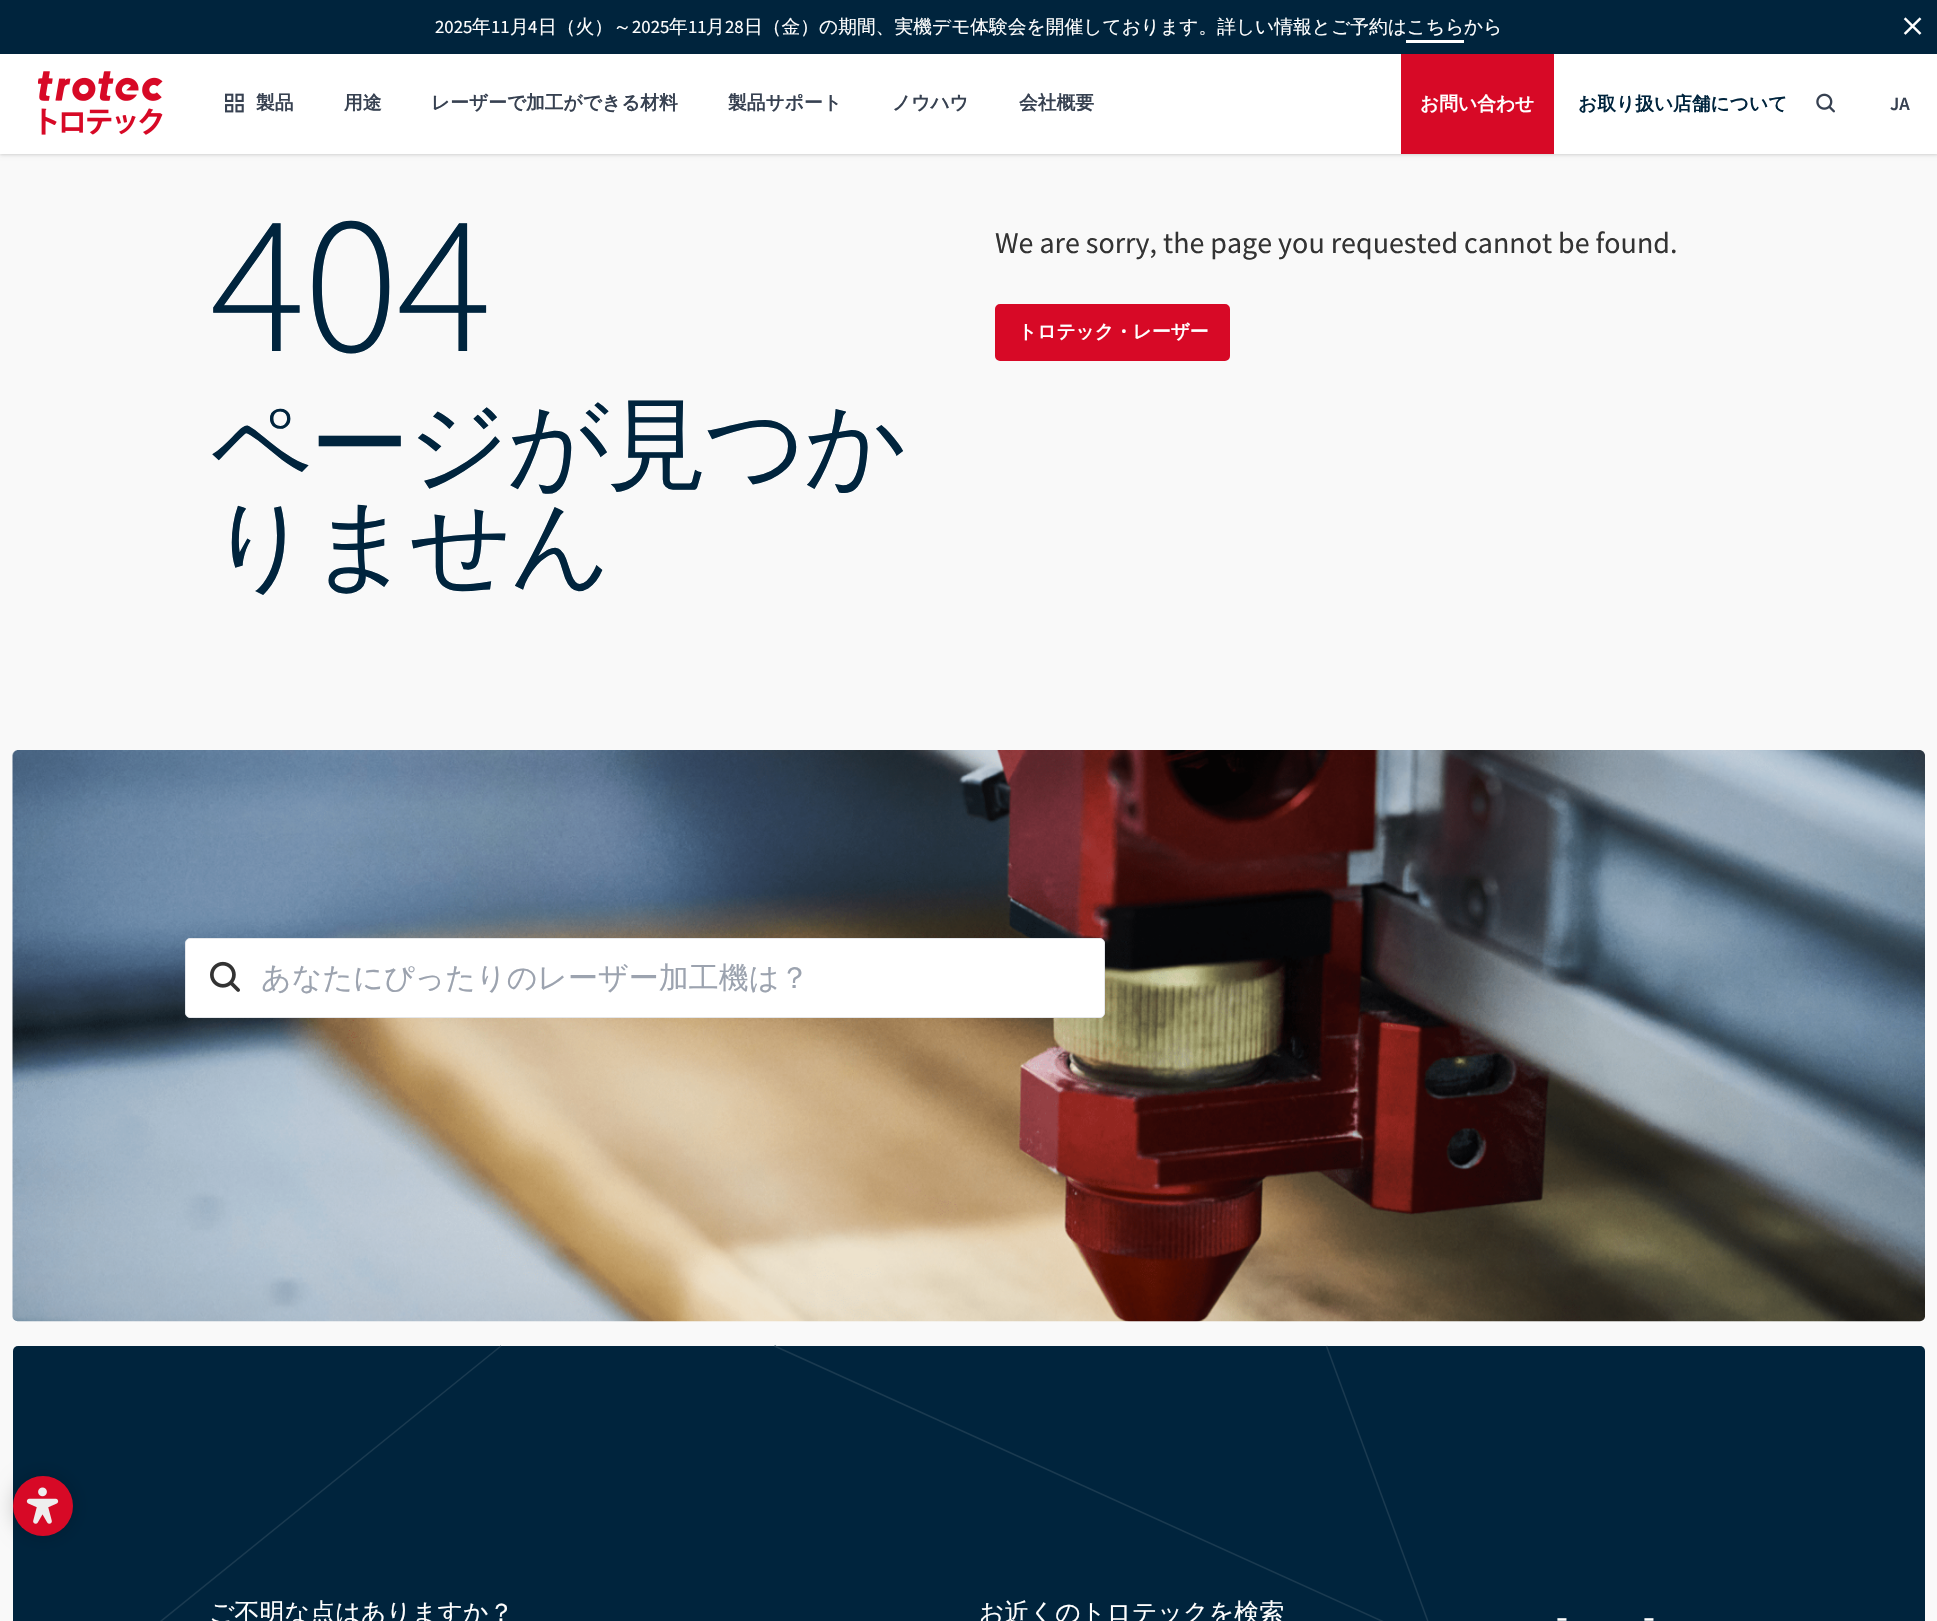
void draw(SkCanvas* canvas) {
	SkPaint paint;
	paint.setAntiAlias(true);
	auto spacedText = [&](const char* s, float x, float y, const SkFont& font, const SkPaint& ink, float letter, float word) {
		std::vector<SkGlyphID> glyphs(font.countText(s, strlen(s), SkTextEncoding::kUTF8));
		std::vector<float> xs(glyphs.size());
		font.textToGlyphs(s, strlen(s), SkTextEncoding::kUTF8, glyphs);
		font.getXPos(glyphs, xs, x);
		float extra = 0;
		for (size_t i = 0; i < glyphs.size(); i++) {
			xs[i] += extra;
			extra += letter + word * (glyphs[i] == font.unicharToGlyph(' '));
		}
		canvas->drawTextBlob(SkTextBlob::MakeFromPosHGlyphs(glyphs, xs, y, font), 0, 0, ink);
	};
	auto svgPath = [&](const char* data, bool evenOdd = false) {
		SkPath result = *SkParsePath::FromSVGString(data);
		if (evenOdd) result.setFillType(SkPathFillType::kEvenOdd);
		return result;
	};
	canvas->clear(0xfff9f9f9);
	paint.setColor(0xff00243d);
	canvas->drawRoundRect(SkRect::MakeXYWH(13, 1346, 1912, 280), 5, 5, paint);
	paint.setColor(0x33000000);
	paint.setMaskFilter(SkMaskFilter::MakeBlur(kNormal_SkBlurStyle, 9.5));
	canvas->drawRoundRect(SkRect::MakeXYWH(13, 1476, 60, 60), 30, 30, paint);
	paint.setMaskFilter(nullptr);
	paint.setColor(0xffd70926);
	canvas->drawCircle(43, 1506, 30, paint);
	canvas->drawImageRect(SkImages::DeferredFromEncodedData(SkData::MakeFromFileName("img1.png")), SkRect::MakeXYWH(26, 1487, 33, 37), SkSamplingOptions());
	paint.setColor(0x0f000000);
	paint.setMaskFilter(SkMaskFilter::MakeBlur(kNormal_SkBlurStyle, 1));
	canvas->drawRect(SkRect::MakeXYWH(0, 1, 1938, 154), paint);
	paint.setMaskFilter(nullptr);
	paint.setColor(0x1a000000);
	paint.setMaskFilter(SkMaskFilter::MakeBlur(kNormal_SkBlurStyle, 2));
	canvas->drawRect(SkRect::MakeXYWH(0, 1, 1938, 154), paint);
	paint.setMaskFilter(nullptr);
	paint.setColor(0xffffffff);
	canvas->drawRect(SkRect::MakeXYWH(0, 54, 1937, 100), paint);
	paint.setColor(0xff00243d);
	canvas->drawRect(SkRect::MakeXYWH(0, 0, 1937, 54), paint);
	SkFont f1(fontMgr->matchFamilyStyle("Source Sans Pro", SkFontStyle::Normal()), 18.75);
	f1.setSubpixel(true);
	paint.setColor(0xffffffff);
	canvas->drawString("2025", 435, 33, f1, paint);
	SkFont f2(fontMgr->matchFamilyStyle("WenQuanYi Zen Hei", SkFontStyle(500, SkFontStyle::kNormal_Width, SkFontStyle::kUpright_Slant)), 18.75);
	f2.setSubpixel(true);
	canvas->drawString("年", 472, 33, f2, paint);
	canvas->drawString("11", 491, 33, f1, paint);
	canvas->drawString("月", 510, 33, f2, paint);
	canvas->drawString("4", 528, 33, f1, paint);
	canvas->drawString("日（火）～", 538, 33, f2, paint);
	canvas->drawString("2025", 632, 33, f1, paint);
	canvas->drawString("年", 669, 33, f2, paint);
	canvas->drawString("11", 688, 33, f1, paint);
	canvas->drawString("月", 706, 33, f2, paint);
	canvas->drawString("28", 725, 33, f1, paint);
	canvas->drawString("日（金）の期間、実機デモ体験会を開催しております。詳しい情報とご予約はこちら", 744, 33, f2, paint);
	canvas->drawString("から", 1464, 33, f2, paint);
	canvas->drawRect(SkRect::MakeXYWH(1406, 40, 58, 3), paint);
	canvas->drawImageRect(SkImages::DeferredFromEncodedData(SkData::MakeFromFileName("img2.png")), SkRect::MakeXYWH(1903, 17, 19, 18), SkSamplingOptions());
	canvas->drawImageRect(SkImages::DeferredFromEncodedData(SkData::MakeFromFileName("img3.png")), SkRect::MakeXYWH(38, 71, 125, 64), SkSamplingOptions());
	canvas->drawImageRect(SkImages::DeferredFromEncodedData(SkData::MakeFromFileName("img4.png")), SkRect::MakeXYWH(225, 93, 19, 20), SkSamplingOptions());
	SkFont f3(fontMgr->matchFamilyStyle("WenQuanYi Zen Hei", SkFontStyle::Bold()), 18.75);
	f3.setSubpixel(true);
	paint.setColor(0xff374151);
	canvas->drawString("製品", 256, 109, f3, paint);
	canvas->drawString("用途", 344, 109, f3, paint);
	canvas->drawString("レーザーで加工ができる材料", 431, 109, f3, paint);
	canvas->drawString("製品サポート", 728, 109, f3, paint);
	canvas->drawString("ノウハウ", 892, 109, f3, paint);
	canvas->drawString("会社概要", 1019, 109, f3, paint);
	paint.setColor(0xffd70926);
	canvas->drawRect(SkRect::MakeXYWH(1401, 54, 153, 100), paint);
	paint.setColor(0xffffffff);
	canvas->drawString("お問い合わせ", 1420, 110, f3, paint);
	paint.setColor(0xff00243d);
	canvas->drawString("お取り扱い店舗について", 1578, 110, f3, paint);
	canvas->drawImageRect(SkImages::DeferredFromEncodedData(SkData::MakeFromFileName("img5.png")), SkRect::MakeXYWH(1816, 93, 19, 20), SkSamplingOptions());
	SkFont f4(fontMgr->matchFamilyStyle("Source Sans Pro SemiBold", SkFontStyle(600, SkFontStyle::kNormal_Width, SkFontStyle::kUpright_Slant)), 18.75);
	f4.setSubpixel(true);
	paint.setColor(0xff374151);
	canvas->drawString("JA", 1890, 110, f4, paint);
	SkFont f5(fontMgr->matchFamilyStyle("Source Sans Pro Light", SkFontStyle(300, SkFontStyle::kNormal_Width, SkFontStyle::kUpright_Slant)), 200);
	f5.setSubpixel(true);
	paint.setColor(0xff00243d);
	spacedText("404", 210, 351, f5, paint, -2.5, 0);
	SkFont f6(fontMgr->matchFamilyStyle("WenQuanYi Zen Hei", SkFontStyle(500, SkFontStyle::kNormal_Width, SkFontStyle::kUpright_Slant)), 100);
	f6.setSubpixel(true);
	spacedText("ページが見つか", 210, 479, f6, paint, -2.5, 0);
	spacedText("りません", 210, 579, f6, paint, -2.5, 0);
	SkFont f7(fontMgr->matchFamilyStyle("Source Sans Pro", SkFontStyle::Normal()), 30);
	f7.setSubpixel(true);
	paint.setColor(0xff333333);
	canvas->drawString("We are sorry, the page you requested cannot be found.", 995, 253, f7, paint);
	paint.setColor(0xffd70926);
	canvas->drawRoundRect(SkRect::MakeXYWH(996.5, 305.5, 232, 54), 3.5, 3.5, paint);
	paint.setStroke(true);
	paint.setStrokeWidth(3);
	canvas->drawRoundRect(SkRect::MakeXYWH(996.5, 305.5, 232, 54), 3.5, 3.5, paint);
	paint.setStroke(false);
	paint.setColor(0xffffffff);
	canvas->drawString("トロテック・レーザー", 1018, 338, f3, paint);
	canvas->drawImageRect(SkImages::DeferredFromEncodedData(SkData::MakeFromFileName("img6.png")), SkRect::MakeXYWH(12, 750, 1913, 572), SkSamplingOptions());
	canvas->drawRoundRect(SkRect::MakeXYWH(185.5, 938.5, 919, 79), 4.5, 4.5, paint);
	paint.setStroke(true);
	paint.setStrokeWidth(1);
	paint.setColor(0xffe5e7eb);
	canvas->drawRoundRect(SkRect::MakeXYWH(185.5, 938.5, 919, 79), 4.5, 4.5, paint);
	canvas->drawImageRect(SkImages::DeferredFromEncodedData(SkData::MakeFromFileName("img7.png")), SkRect::MakeXYWH(210, 961, 30, 31), SkSamplingOptions());
	SkFont f8(fontMgr->matchFamilyStyle("WenQuanYi Zen Hei", SkFontStyle(500, SkFontStyle::kNormal_Width, SkFontStyle::kUpright_Slant)), 30);
	f8.setSubpixel(true);
	paint.setStroke(false);
	paint.setColor(0xff9ca3af);
	canvas->drawString("あなたにぴったりのレーザー加工機は？", 261, 988, f8, paint);
	paint.setStroke(true);
	paint.setStrokeWidth(1.5);
	paint.setColor(0xff1a3a50);
	canvas->drawPath(svgPath("M1437 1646L1326.5 1346"), paint);
	SkFont f9(fontMgr->matchFamilyStyle("WenQuanYi Zen Hei", SkFontStyle(500, SkFontStyle::kNormal_Width, SkFontStyle::kUpright_Slant)), 25);
	f9.setSubpixel(true);
	paint.setStroke(false);
	paint.setColor(0xffffffff);
	canvas->drawString("お近くのトロテックを検索", 979, 1621, f9, paint);
	paint.setStroke(true);
	paint.setColor(0xff1a3a50);
	canvas->drawPath(svgPath("M774.5 1346L1437 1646"), paint);
	canvas->drawPath(svgPath("M13.5 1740.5L501 1346"), paint);
	paint.setStroke(false);
	paint.setColor(0xffffffff);
	canvas->drawString("ご不明な点はありますか？", 209, 1621, f9, paint);
	SkFont f10(fontMgr->matchFamilyStyle("Source Sans Pro", SkFontStyle::Normal()), 38);
	f10.setSubpixel(true);
	canvas->drawString("-", 1556, 1629, f10, paint);
	canvas->drawString("-", 1643, 1629, f10, paint);
}
